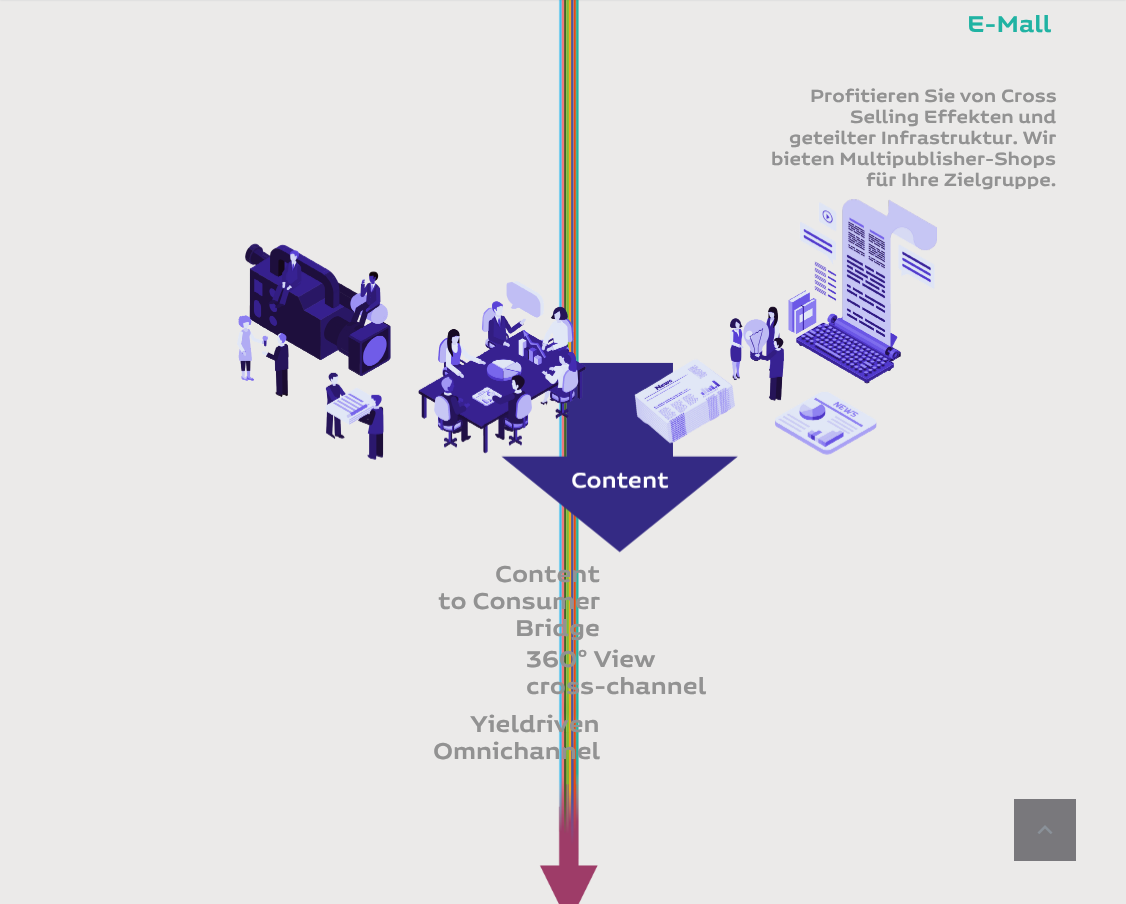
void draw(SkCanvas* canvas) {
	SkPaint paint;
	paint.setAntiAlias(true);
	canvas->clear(0xffebeae9);
	canvas->drawImageRect(SkImages::DeferredFromEncodedData(SkData::MakeFromFileName("img1.png")), SkRect::MakeXYWH(539, 0, 59, 904), SkSamplingOptions());
	paint.setColor(0x33384554);
	paint.setMaskFilter(SkMaskFilter::MakeBlur(kNormal_SkBlurStyle, 1));
	canvas->drawRect(SkRect::MakeXYWH(0, -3, 1126, 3), paint);
	paint.setMaskFilter(nullptr);
	SkFont f1(fontMgr->matchFamilyStyle("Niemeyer", SkFontStyle(600, SkFontStyle::kNormal_Width, SkFontStyle::kUpright_Slant)), 22.5);
	f1.setSubpixel(true);
	paint.setColor(0xff20b3a3);
	canvas->drawString("E-Mall", 967, 32, f1, paint);
	SkFont f2(fontMgr->matchFamilyStyle("Niemeyer", SkFontStyle(600, SkFontStyle::kNormal_Width, SkFontStyle::kUpright_Slant)), 17.5);
	f2.setSubpixel(true);
	paint.setColor(0xff929292);
	canvas->drawString("Profitieren Sie von Cross", 810, 102, f2, paint);
	canvas->drawString("Selling Effekten und", 850, 123, f2, paint);
	canvas->drawString("geteilter Infrastruktur. Wir", 789, 144, f2, paint);
	canvas->drawString("bieten Multipublisher-Shops", 771, 165, f2, paint);
	canvas->drawString("für Ihre Zielgruppe.", 866, 186, f2, paint);
	canvas->drawImageRect(SkImages::DeferredFromEncodedData(SkData::MakeFromFileName("img2.png")), SkRect::MakeXYWH(237, 199, 700, 354), SkSamplingOptions());
	canvas->drawString("Content", 495, 582, f1, paint);
	canvas->drawString("to Consumer", 438, 609, f1, paint);
	canvas->drawString("Bridge", 515, 636, f1, paint);
	canvas->drawString("360° View", 526, 667, f1, paint);
	canvas->drawString("cross-channel", 526, 694, f1, paint);
	canvas->drawString("Yieldriven", 470, 732, f1, paint);
	canvas->drawString("Omnichannel", 433, 759, f1, paint);
	paint.setColor(0xff79787c);
	canvas->drawRect(SkRect::MakeXYWH(1014, 799, 62, 62), paint);
	canvas->drawImageRect(SkImages::DeferredFromEncodedData(SkData::MakeFromFileName("img3.png")), SkRect::MakeXYWH(1037, 825, 16, 9), SkSamplingOptions());
}
